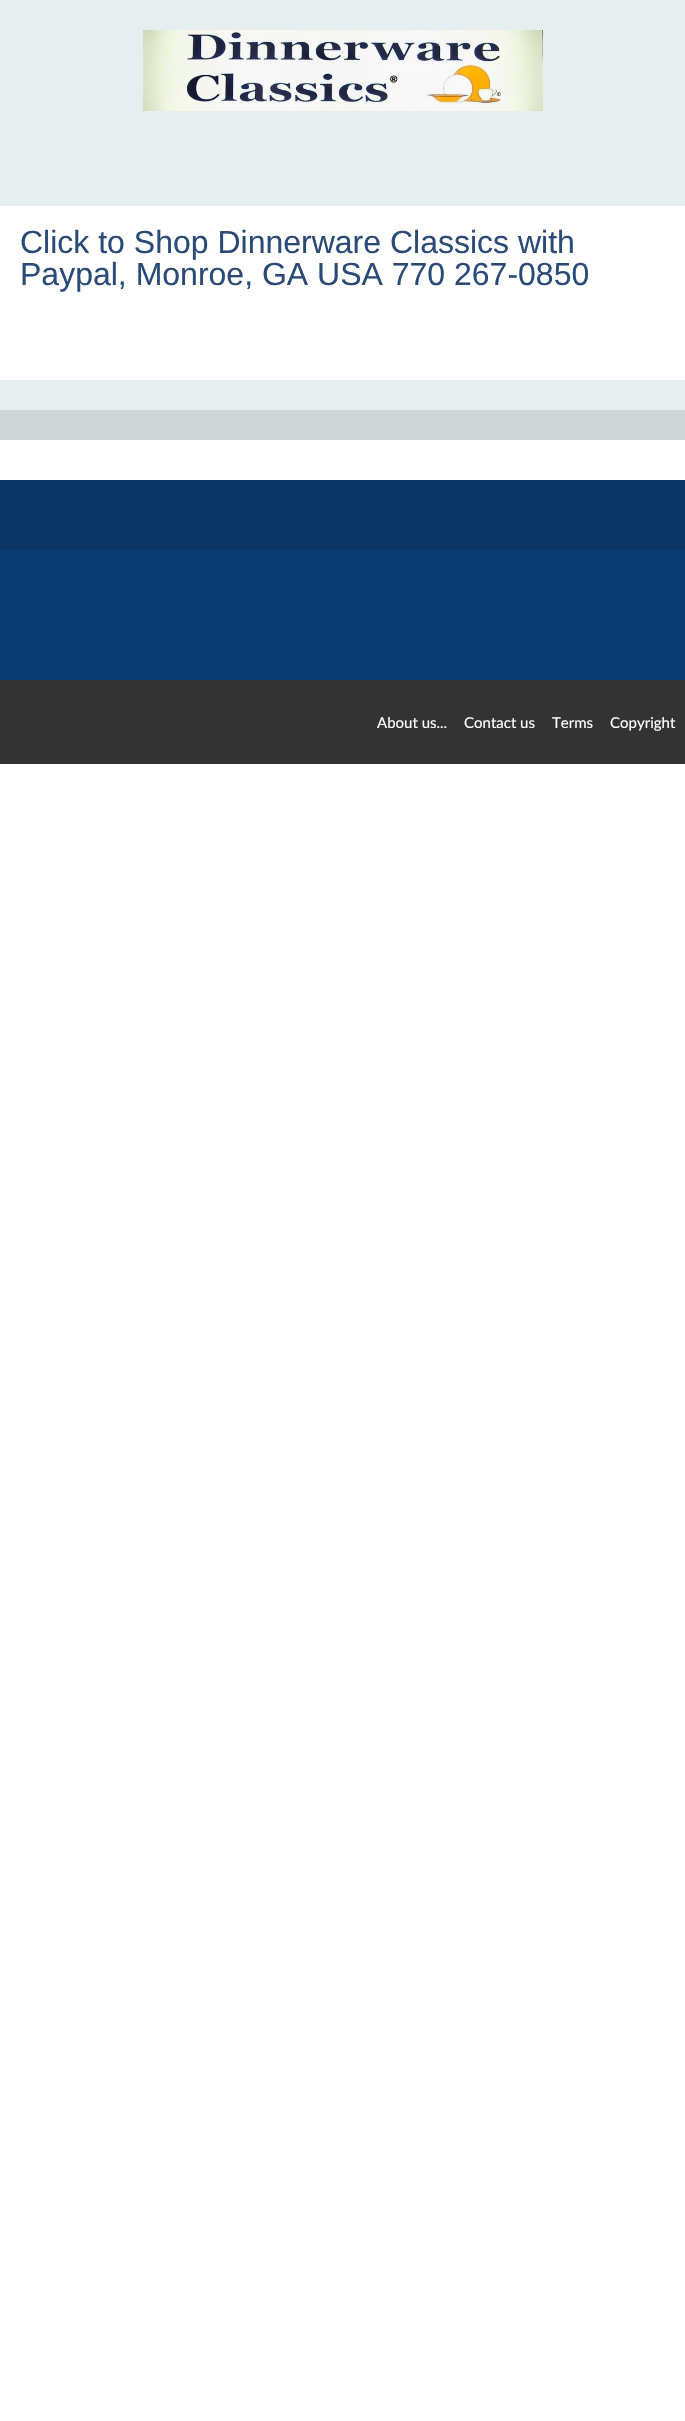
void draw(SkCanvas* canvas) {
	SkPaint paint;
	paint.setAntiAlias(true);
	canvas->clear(0xffffffff);
	paint.setColor(0xffe6eef0);
	canvas->drawRect(SkRect::MakeXYWH(0, 0, 685, 206), paint);
	canvas->drawImageRect(SkImages::DeferredFromEncodedData(SkData::MakeFromFileName("img1.png")), SkRect::MakeXYWH(143, 30, 400, 81), SkSamplingOptions());
	SkFont f1(fontMgr->matchFamilyStyle("Liberation Sans", SkFontStyle::Normal()), 32);
	f1.setSubpixel(true);
	paint.setColor(0xff2a4b78);
	canvas->drawString("Click to Shop Dinnerware Classics with", 20, 253, f1, paint);
	canvas->drawString("Paypal, Monroe, GA USA 770 267-0850", 20, 285, f1, paint);
	paint.setColor(0xffe6eef0);
	canvas->drawRect(SkRect::MakeXYWH(0, 380, 685, 30), paint);
	paint.setColor(0xffcfd6d8);
	canvas->drawRect(SkRect::MakeXYWH(0, 410, 685, 30), paint);
	paint.setColor(0xff0a3564);
	canvas->drawRect(SkRect::MakeXYWH(0, 480, 685, 70), paint);
	paint.setColor(0xff0b3c72);
	canvas->drawRect(SkRect::MakeXYWH(0, 550, 685, 130), paint);
	paint.setColor(0xff333333);
	canvas->drawRect(SkRect::MakeXYWH(0, 680, 685, 84), paint);
	SkFont f2(fontMgr->matchFamilyStyle("Lato", SkFontStyle::Normal()), 15);
	f2.setSubpixel(true);
	paint.setColor(0xffffffff);
	canvas->drawString("About us...", 377, 728, f2, paint);
	canvas->drawString("Contact us", 464, 728, f2, paint);
	canvas->drawString("Terms", 552, 728, f2, paint);
	canvas->drawString("Copyright", 610, 728, f2, paint);
}
